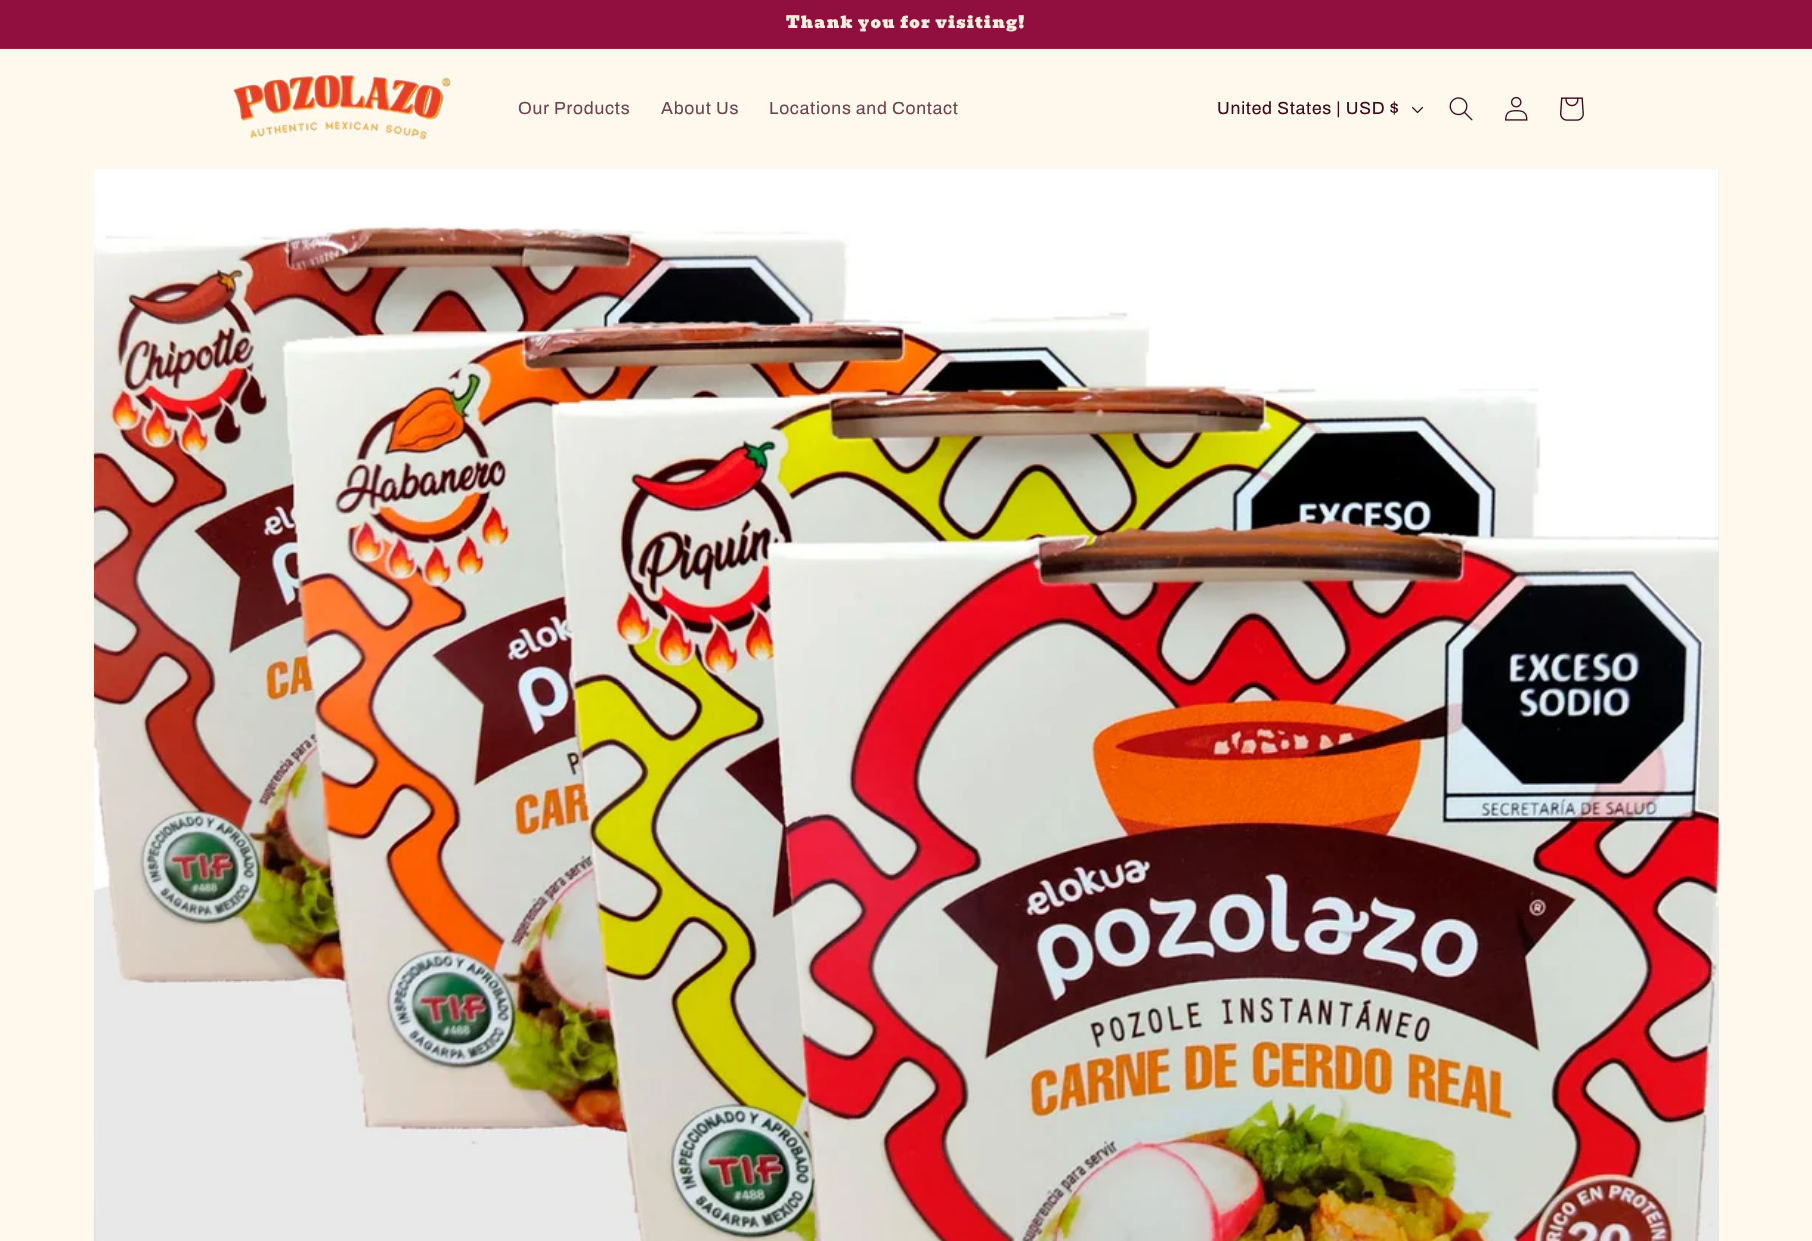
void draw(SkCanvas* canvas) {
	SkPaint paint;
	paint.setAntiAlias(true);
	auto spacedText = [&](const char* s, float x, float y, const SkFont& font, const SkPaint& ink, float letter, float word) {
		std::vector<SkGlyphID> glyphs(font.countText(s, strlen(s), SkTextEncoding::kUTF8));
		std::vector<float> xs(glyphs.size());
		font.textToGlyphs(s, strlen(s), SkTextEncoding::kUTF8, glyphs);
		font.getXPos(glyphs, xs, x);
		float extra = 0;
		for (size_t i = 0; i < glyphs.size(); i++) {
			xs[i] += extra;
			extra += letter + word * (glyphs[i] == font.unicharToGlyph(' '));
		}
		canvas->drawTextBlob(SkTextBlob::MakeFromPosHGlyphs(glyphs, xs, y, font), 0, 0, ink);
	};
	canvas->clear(0xfffff8ed);
	paint.setColor(0xff910f3f);
	canvas->drawRect(SkRect::MakeXYWH(0, 0, 1812, 48), paint);
	paint.setColor(0xff99214c);
	canvas->drawRect(SkRect::MakeXYWH(0, 48, 1812, 1), paint);
	SkFont f1(fontMgr->matchFamilyStyle("Bevan", SkFontStyle::Normal()), 16.25);
	f1.setSubpixel(true);
	paint.setColor(0xfff2efdd);
	spacedText("Thank you for visiting!", 786, 28, f1, paint, 1.25, 0);
	canvas->drawImageRect(SkImages::DeferredFromEncodedData(SkData::MakeFromFileName("img1.png")), SkRect::MakeXYWH(229, 69, 227, 71), SkSamplingOptions());
	SkFont f2(fontMgr->matchFamilyStyle("Archivo", SkFontStyle::Normal()), 17.5);
	f2.setSubpixel(true);
	paint.setColor(0xff6e4450);
	spacedText("Our Products", 518, 114, f2, paint, 0.75, 0);
	spacedText("About Us", 661, 114, f2, paint, 0.75, 0);
	spacedText("Locations and Contact", 769, 114, f2, paint, 0.75, 0);
	paint.setColor(0xff3d081b);
	spacedText("United States | USD $", 1217, 114, f2, paint, 0.75, 0);
	canvas->drawImageRect(SkImages::DeferredFromEncodedData(SkData::MakeFromFileName("img2.png")), SkRect::MakeXYWH(1411, 106, 13, 8), SkSamplingOptions());
	canvas->drawImageRect(SkImages::DeferredFromEncodedData(SkData::MakeFromFileName("img3.png")), SkRect::MakeXYWH(1449, 97, 24, 24), SkSamplingOptions());
	canvas->drawImageRect(SkImages::DeferredFromEncodedData(SkData::MakeFromFileName("img4.png")), SkRect::MakeXYWH(1505, 96, 23, 25), SkSamplingOptions());
	canvas->drawImageRect(SkImages::DeferredFromEncodedData(SkData::MakeFromFileName("img5.png")), SkRect::MakeXYWH(1560, 97, 24, 24), SkSamplingOptions());
	paint.setColor(0xffece5d5);
	canvas->drawRect(SkRect::MakeXYWH(1718, 169, 1, 1072), paint);
	canvas->drawImageRect(SkImages::DeferredFromEncodedData(SkData::MakeFromFileName("img6.png")), SkRect::MakeXYWH(93, 169, 1626, 1072), SkSamplingOptions());
}
